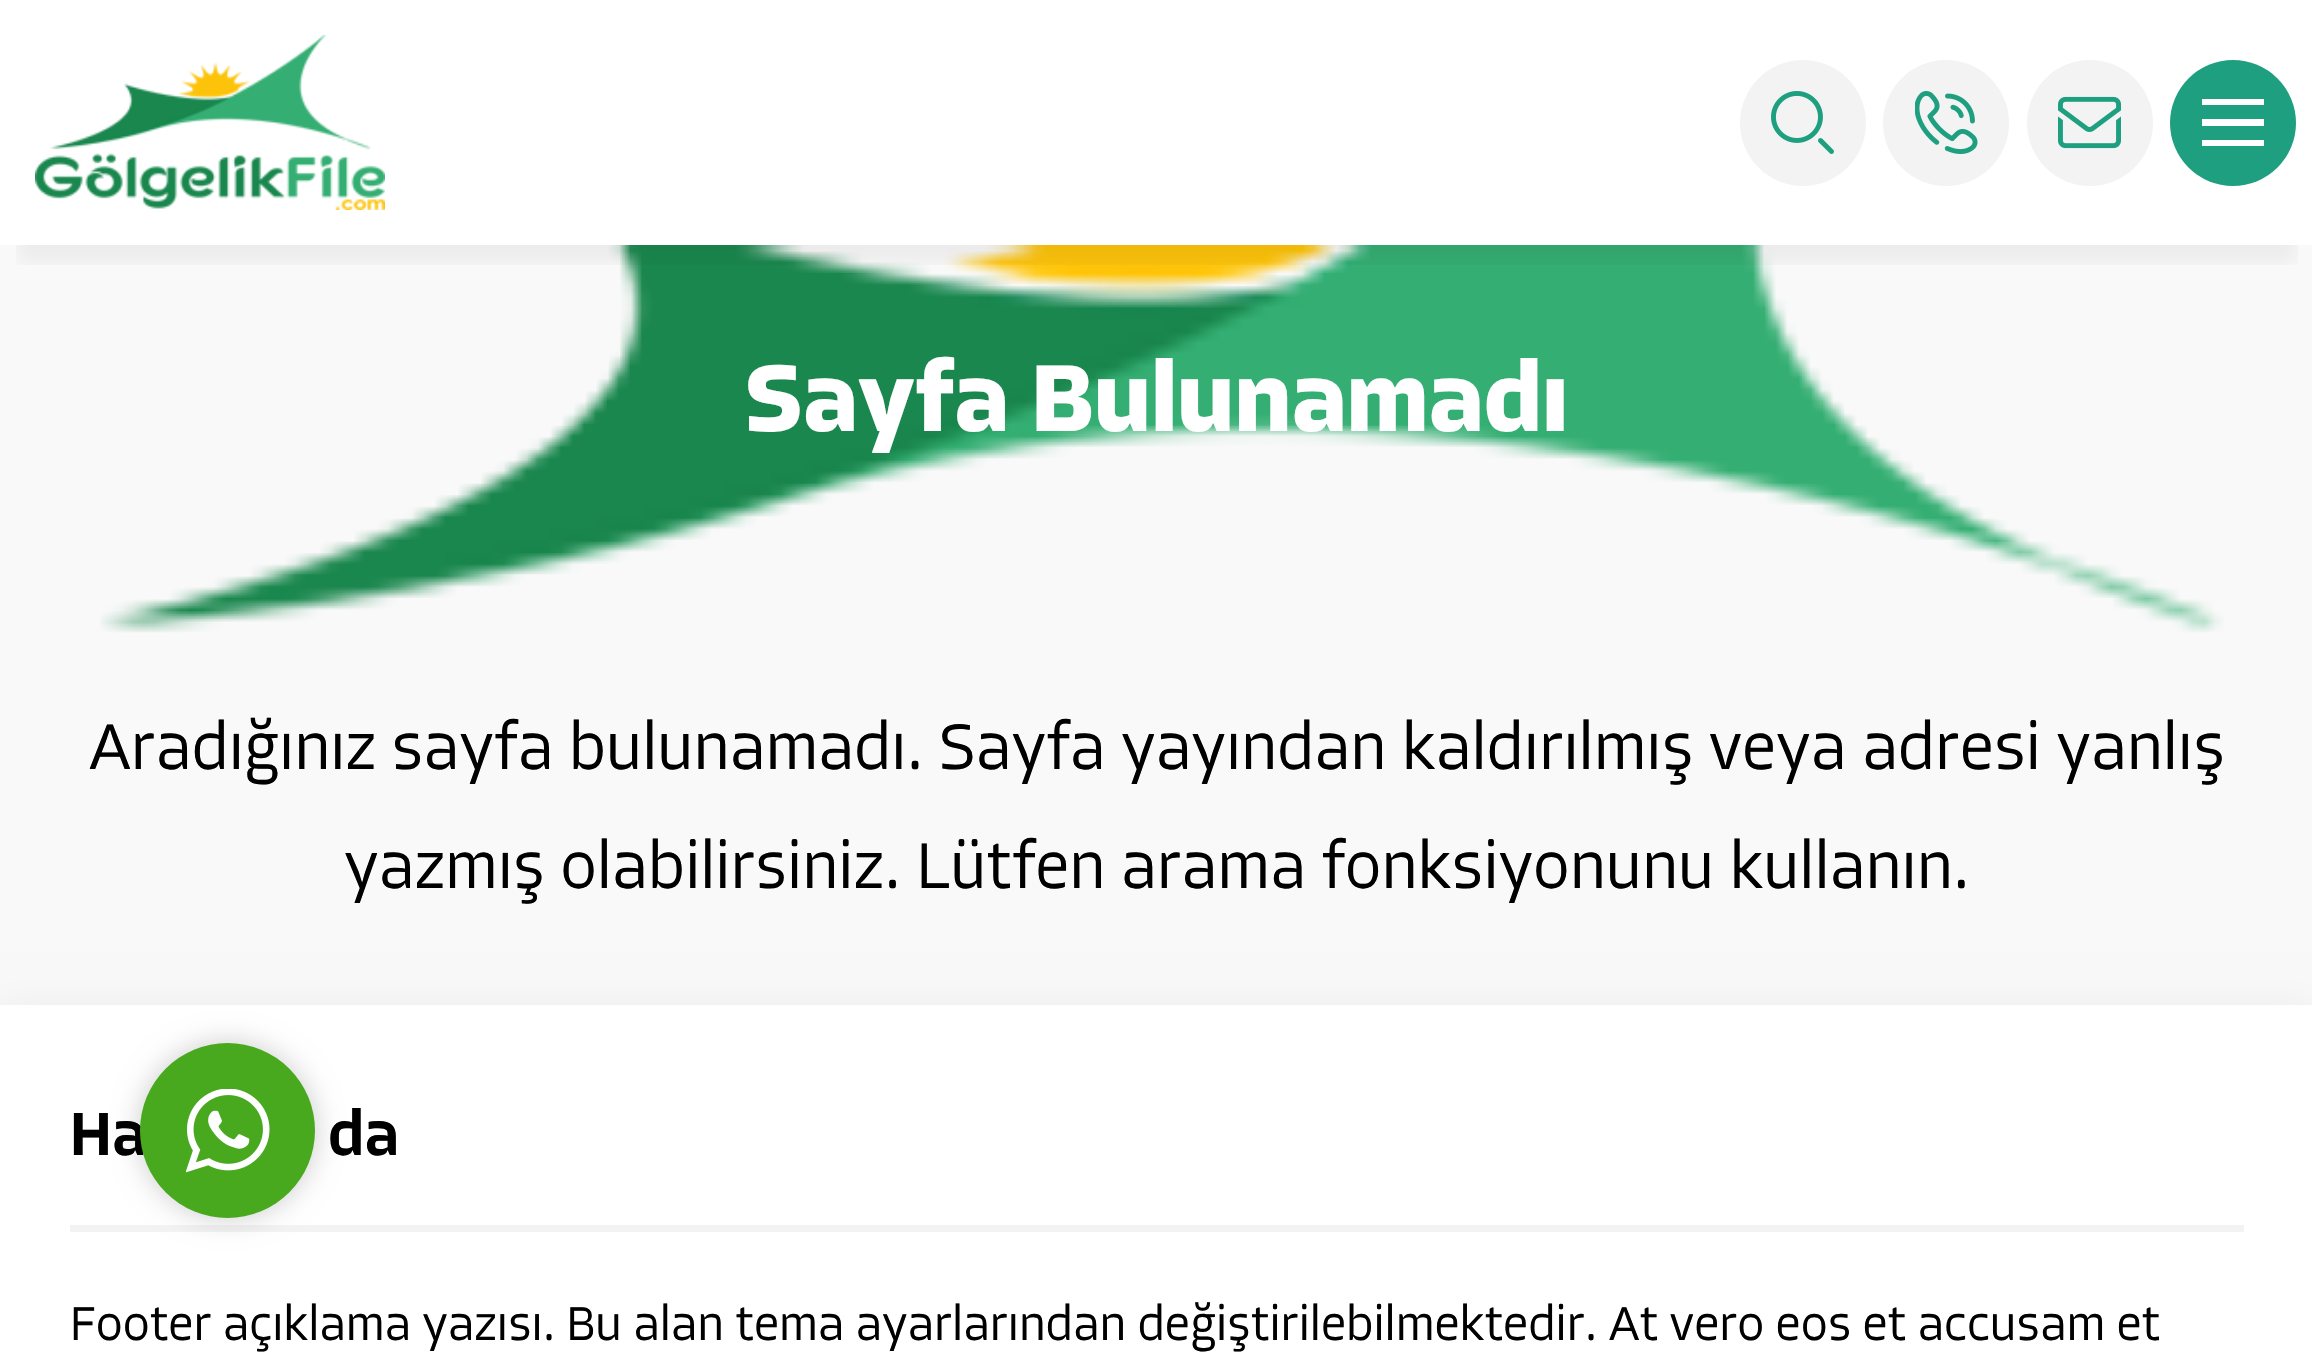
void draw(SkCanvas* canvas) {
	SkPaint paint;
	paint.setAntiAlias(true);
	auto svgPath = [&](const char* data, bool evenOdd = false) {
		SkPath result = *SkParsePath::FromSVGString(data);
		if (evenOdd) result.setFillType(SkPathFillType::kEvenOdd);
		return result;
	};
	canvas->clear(0xfff9f9f9);
	paint.setColor(0xffffffff);
	canvas->drawRect(SkRect::MakeXYWH(0, 0, 2312, 245), paint);
	canvas->drawImageRect(SkImages::DeferredFromEncodedData(SkData::MakeFromFileName("img5.png")), SkRect::MakeXYWH(100, 245, 2124, 388), SkSamplingOptions());
	canvas->save();
	canvas->clipRect(SkRect::MakeXYWH(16, 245, 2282, 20));
	paint.setColor(0x0d000000);
	paint.setMaskFilter(SkMaskFilter::MakeBlur(kNormal_SkBlurStyle, 9));
	canvas->drawRect(SkRect::MakeXYWH(18, 53, 2278, 210), paint);
	paint.setMaskFilter(nullptr);
	canvas->restore();
	canvas->drawImageRect(SkImages::DeferredFromEncodedData(SkData::MakeFromFileName("img1.png")), SkRect::MakeXYWH(35, 35, 350, 175), SkSamplingOptions());
	paint.setColor(0xfff3f3f3);
	canvas->drawCircle(1803, 123, 63, paint);
	canvas->drawImageRect(SkImages::DeferredFromEncodedData(SkData::MakeFromFileName("img2.png")), SkRect::MakeXYWH(1771, 91, 63, 63), SkSamplingOptions());
	canvas->drawCircle(1946, 123, 63, paint);
	canvas->drawImageRect(SkImages::DeferredFromEncodedData(SkData::MakeFromFileName("img3.png")), SkRect::MakeXYWH(1915, 91, 63, 63), SkSamplingOptions());
	canvas->drawCircle(2090, 123, 63, paint);
	canvas->drawImageRect(SkImages::DeferredFromEncodedData(SkData::MakeFromFileName("img4.png")), SkRect::MakeXYWH(2058, 96, 63, 53), SkSamplingOptions());
	paint.setColor(0xff1d9f80);
	canvas->drawCircle(2233, 123, 63, paint);
	paint.setColor(0xffffffff);
	canvas->drawPath(svgPath("M2202 99H2264V105H2202ZM2202 140H2264V146H2202ZM2202 119H2264V126H2202Z"), paint);
	SkFont f1(fontMgr->matchFamilyStyle("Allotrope", SkFontStyle::Bold()), 98);
	f1.setSubpixel(true);
	canvas->drawString("Sayfa Bulunamadı", 745, 431, f1, paint);
	SkFont f2(fontMgr->matchFamilyStyle("Allotrope", SkFontStyle(300, SkFontStyle::kNormal_Width, SkFontStyle::kUpright_Slant)), 66.5);
	f2.setSubpixel(true);
	paint.setColor(0xff000000);
	canvas->drawString("Aradığınız sayfa bulunamadı. Sayfa yayından kaldırılmış veya adresi yanlış", 89, 769, f2, paint);
	canvas->drawString("yazmış olabilirsiniz. Lütfen arama fonksiyonunu kullanın.", 344, 888, f2, paint);
	paint.setColor(0x0d000000);
	paint.setMaskFilter(SkMaskFilter::MakeBlur(kNormal_SkBlurStyle, 17.5));
	canvas->drawRect(SkRect::MakeXYWH(0, 1005, 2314, 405), paint);
	paint.setMaskFilter(nullptr);
	paint.setColor(0xffffffff);
	canvas->drawRect(SkRect::MakeXYWH(0, 1005, 2312, 352), paint);
	paint.setColor(0xfff3f3f3);
	canvas->drawRect(SkRect::MakeXYWH(70, 1225, 2174, 7), paint);
	paint.setColor(0x33000000);
	paint.setMaskFilter(SkMaskFilter::MakeBlur(kNormal_SkBlurStyle, 14));
	canvas->drawRoundRect(SkRect::MakeXYWH(140, 1043, 175, 175), 87.5, 87.5, paint);
	paint.setMaskFilter(nullptr);
	SkFont f3(fontMgr->matchFamilyStyle("Allotrope", SkFontStyle(500, SkFontStyle::kNormal_Width, SkFontStyle::kUpright_Slant)), 63);
	f3.setSubpixel(true);
	paint.setColor(0xff000000);
	canvas->drawString("Ha", 70, 1155, f3, paint);
	paint.setColor(0xff48a91f);
	canvas->drawCircle(227.5, 1130.5, 87.5, paint);
	canvas->drawImageRect(SkImages::DeferredFromEncodedData(SkData::MakeFromFileName("img6.png")), SkRect::MakeXYWH(186, 1089, 84, 84), SkSamplingOptions());
	paint.setColor(0xff000000);
	canvas->drawString("da", 328, 1155, f3, paint);
	SkFont f4(fontMgr->matchFamilyStyle("Allotrope", SkFontStyle(300, SkFontStyle::kNormal_Width, SkFontStyle::kUpright_Slant)), 49);
	f4.setSubpixel(true);
	canvas->drawString("Footer açıklama yazısı. Bu alan tema ayarlarından değiştirilebilmektedir. At vero eos et accusam et", 70, 1340, f4, paint);
}
